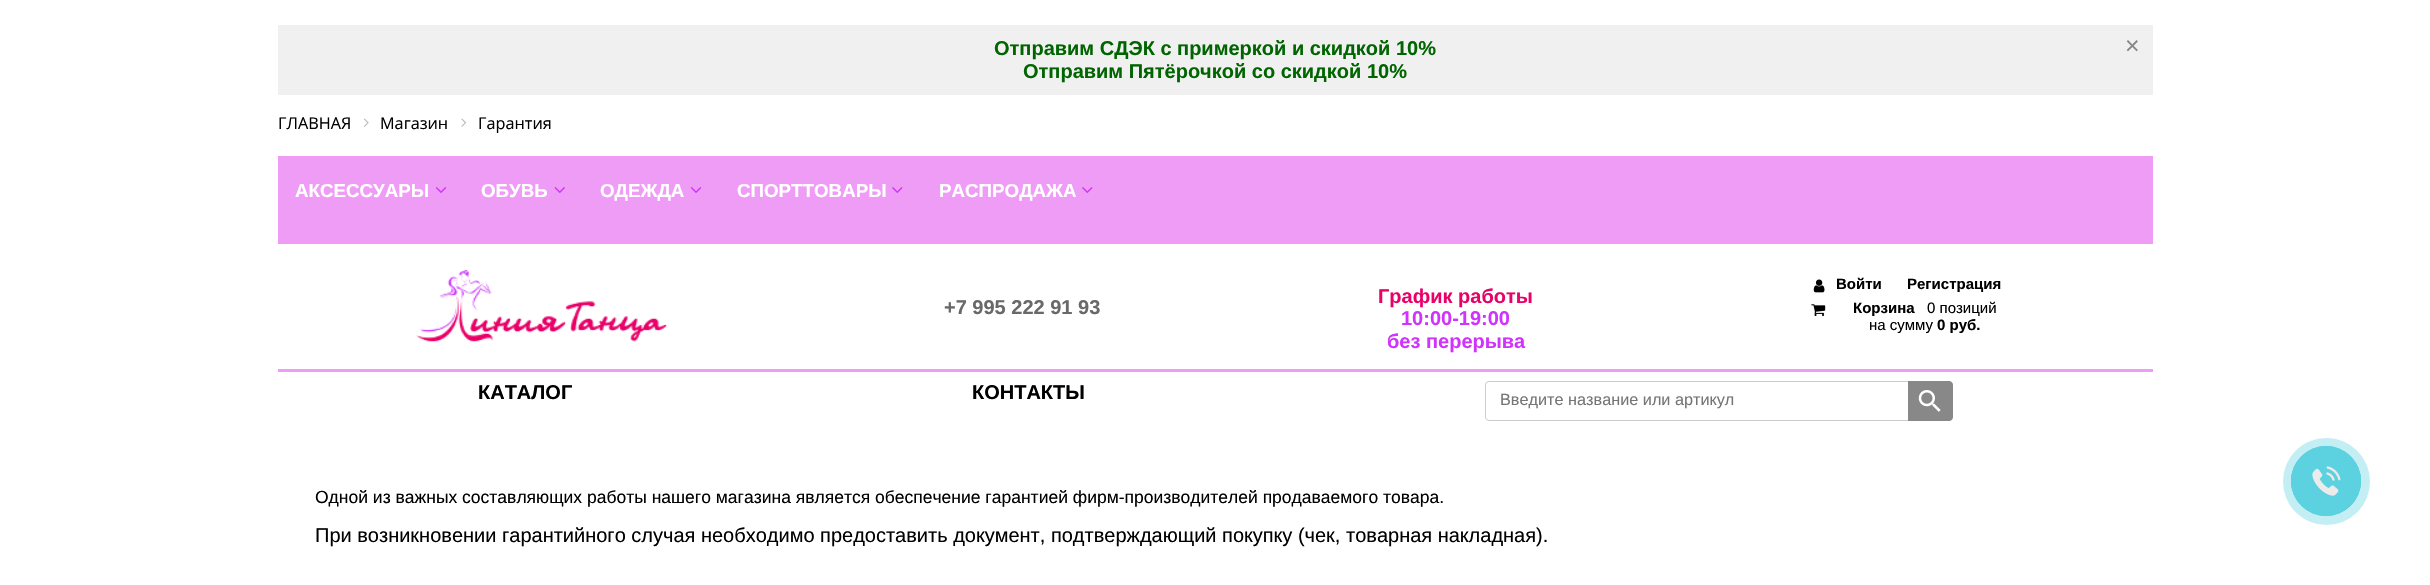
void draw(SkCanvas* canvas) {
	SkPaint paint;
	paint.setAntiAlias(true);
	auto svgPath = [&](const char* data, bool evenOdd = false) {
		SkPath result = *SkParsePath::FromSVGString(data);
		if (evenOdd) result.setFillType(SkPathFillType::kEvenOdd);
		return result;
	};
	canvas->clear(0xffffffff);
	paint.setColor(0xfff0f0f0);
	canvas->drawRect(SkRect::MakeXYWH(278, 25, 1875, 70), paint);
	SkFont f1(fontMgr->matchFamilyStyle("Liberation Sans", SkFontStyle::Bold()), 20);
	f1.setSubpixel(true);
	paint.setColor(0xff006400);
	canvas->drawString("Отправим СДЭК с примеркой и скидкой 10%", 994, 55, f1, paint);
	SkFont f2(fontMgr->matchFamilyStyle("Liberation Sans", SkFontStyle::Normal()), 25);
	f2.setSubpixel(true);
	paint.setColor(0xff888888);
	canvas->drawString("×", 2125, 54, f2, paint);
	paint.setColor(0xff006400);
	canvas->drawString("Отправим Пятёрочкой со скидкой 10%", 1023, 78, f1, paint);
	SkFont f3(fontMgr->matchFamilyStyle("Open Sans", SkFontStyle::Normal()), 16.25);
	f3.setSubpixel(true);
	paint.setColor(0xff000000);
	canvas->drawString("ГЛАВНАЯ", 278, 129, f3, paint);
	canvas->drawImageRect(SkImages::DeferredFromEncodedData(SkData::MakeFromFileName("img1.png")), SkRect::MakeXYWH(364, 118, 5, 9), SkSamplingOptions());
	canvas->drawString("Магазин", 380, 129, f3, paint);
	canvas->drawImageRect(SkImages::DeferredFromEncodedData(SkData::MakeFromFileName("img2.png")), SkRect::MakeXYWH(461, 118, 6, 9), SkSamplingOptions());
	canvas->drawString("Гарантия", 478, 129, f3, paint);
	paint.setColor(0xffef9cf6);
	canvas->drawRect(SkRect::MakeXYWH(278, 156, 1875, 88), paint);
	SkFont f4(fontMgr->matchFamilyStyle("Liberation Sans", SkFontStyle::Bold()), 18.75);
	f4.setSubpixel(true);
	paint.setColor(0xffffffff);
	canvas->drawString("АКСЕССУАРЫ", 295, 197, f4, paint);
	canvas->drawImageRect(SkImages::DeferredFromEncodedData(SkData::MakeFromFileName("img3.png")), SkRect::MakeXYWH(435, 187, 12, 6), SkSamplingOptions());
	canvas->drawString("ОБУВЬ", 481, 197, f4, paint);
	canvas->drawImageRect(SkImages::DeferredFromEncodedData(SkData::MakeFromFileName("img4.png")), SkRect::MakeXYWH(554, 187, 11, 6), SkSamplingOptions());
	canvas->drawString("ОДЕЖДА", 600, 197, f4, paint);
	canvas->drawImageRect(SkImages::DeferredFromEncodedData(SkData::MakeFromFileName("img3.png")), SkRect::MakeXYWH(690, 187, 12, 6), SkSamplingOptions());
	canvas->drawString("СПОРТТОВАРЫ", 737, 197, f4, paint);
	canvas->drawImageRect(SkImages::DeferredFromEncodedData(SkData::MakeFromFileName("img5.png")), SkRect::MakeXYWH(892, 187, 11, 6), SkSamplingOptions());
	canvas->drawString("РАСПРОДАЖА", 939, 197, f4, paint);
	canvas->drawImageRect(SkImages::DeferredFromEncodedData(SkData::MakeFromFileName("img5.png")), SkRect::MakeXYWH(1082, 187, 11, 6), SkSamplingOptions());
	canvas->drawImageRect(SkImages::DeferredFromEncodedData(SkData::MakeFromFileName("img6.png")), SkRect::MakeXYWH(416, 270, 251, 72), SkSamplingOptions());
	paint.setColor(0xff696969);
	canvas->drawString("+7 995 222 91 93", 944, 314, f1, paint);
	paint.setColor(0xffe90167);
	canvas->drawString("График работы", 1378, 303, f1, paint);
	paint.setColor(0xffd033fc);
	canvas->drawString("10:00-19:00", 1401, 325, f1, paint);
	canvas->drawString("без перерыва", 1387, 348, f1, paint);
	canvas->drawImageRect(SkImages::DeferredFromEncodedData(SkData::MakeFromFileName("img7.png")), SkRect::MakeXYWH(1813, 279, 12, 14), SkSamplingOptions());
	SkFont f5(fontMgr->matchFamilyStyle("Liberation Sans", SkFontStyle::Bold()), 15);
	f5.setSubpixel(true);
	paint.setColor(0xff000000);
	canvas->drawString("Войти", 1836, 289, f5, paint);
	canvas->drawString("Регистрация", 1907, 289, f5, paint);
	canvas->drawImageRect(SkImages::DeferredFromEncodedData(SkData::MakeFromFileName("img8.png")), SkRect::MakeXYWH(1811, 304, 15, 13), SkSamplingOptions());
	canvas->drawString("Корзина", 1853, 313, f5, paint);
	SkFont f6(fontMgr->matchFamilyStyle("Liberation Sans", SkFontStyle::Normal()), 15);
	f6.setSubpixel(true);
	canvas->drawString("0 позиций", 1927, 313, f6, paint);
	canvas->drawString("на сумму", 1869, 330, f6, paint);
	canvas->drawString("0 руб.", 1937, 330, f5, paint);
	paint.setColor(0xffef9cf6);
	canvas->drawRect(SkRect::MakeXYWH(278, 369, 1875, 3), paint);
	paint.setColor(0xff000000);
	canvas->drawString("КАТАЛОГ", 478, 399, f1, paint);
	canvas->drawString("КОНТАКТЫ", 972, 399, f1, paint);
	paint.setStroke(true);
	paint.setStrokeWidth(1);
	paint.setColor(0xffcccccc);
	canvas->drawRoundRect(SkRect::MakeXYWH(1485.5, 381.5, 467, 39), 3.5, 3.5, paint);
	SkFont f7(fontMgr->matchFamilyStyle("Liberation Sans", SkFontStyle::Normal()), 16.25);
	f7.setSubpixel(true);
	paint.setStroke(false);
	paint.setColor(0xff757575);
	canvas->drawString("Введите название или артикул", 1500, 405, f7, paint);
	paint.setColor(0xff888888);
	canvas->drawPath(svgPath("M1908 381H1949C1951 381 1953 383 1953 385V417C1953 419 1951 421 1949 421H1908Z"), paint);
	canvas->drawImageRect(SkImages::DeferredFromEncodedData(SkData::MakeFromFileName("img9.png")), SkRect::MakeXYWH(1918, 390, 23, 22), SkSamplingOptions());
	SkFont f8(fontMgr->matchFamilyStyle("Liberation Sans", SkFontStyle::Normal()), 17.5);
	f8.setSubpixel(true);
	paint.setColor(0xff000000);
	canvas->drawString("Одной из важных составляющих работы нашего магазина является обеспечение гарантией фирм-производителей продаваемого товара.", 315, 503, f8, paint);
	SkFont f9(fontMgr->matchFamilyStyle("Liberation Sans", SkFontStyle::Normal()), 20);
	f9.setSubpixel(true);
	canvas->drawString("При возникновении гарантийного случая необходимо предоставить документ, подтверждающий покупку (чек, товарная накладная).", 315, 542, f9, paint);
	paint.setColor(0xffdef6f9);
	canvas->drawCircle(2326.5, 481.5, 43.5, paint);
	paint.setStroke(true);
	paint.setColor(0xff5cd1df);
	canvas->drawCircle(2326, 481, 34.5, paint);
	paint.setStroke(false);
	paint.setColor(0x335cd1df);
	canvas->drawCircle(2326.5, 481.5, 43.5, paint);
	paint.setStroke(true);
	paint.setColor(0xff5cd1df);
	canvas->drawCircle(2326, 481, 34.5, paint);
	paint.setStroke(false);
	canvas->drawCircle(2326, 481, 35, paint);
	canvas->drawImageRect(SkImages::DeferredFromEncodedData(SkData::MakeFromFileName("img10.png")), SkRect::MakeXYWH(2312, 466, 29, 30), SkSamplingOptions());
}
